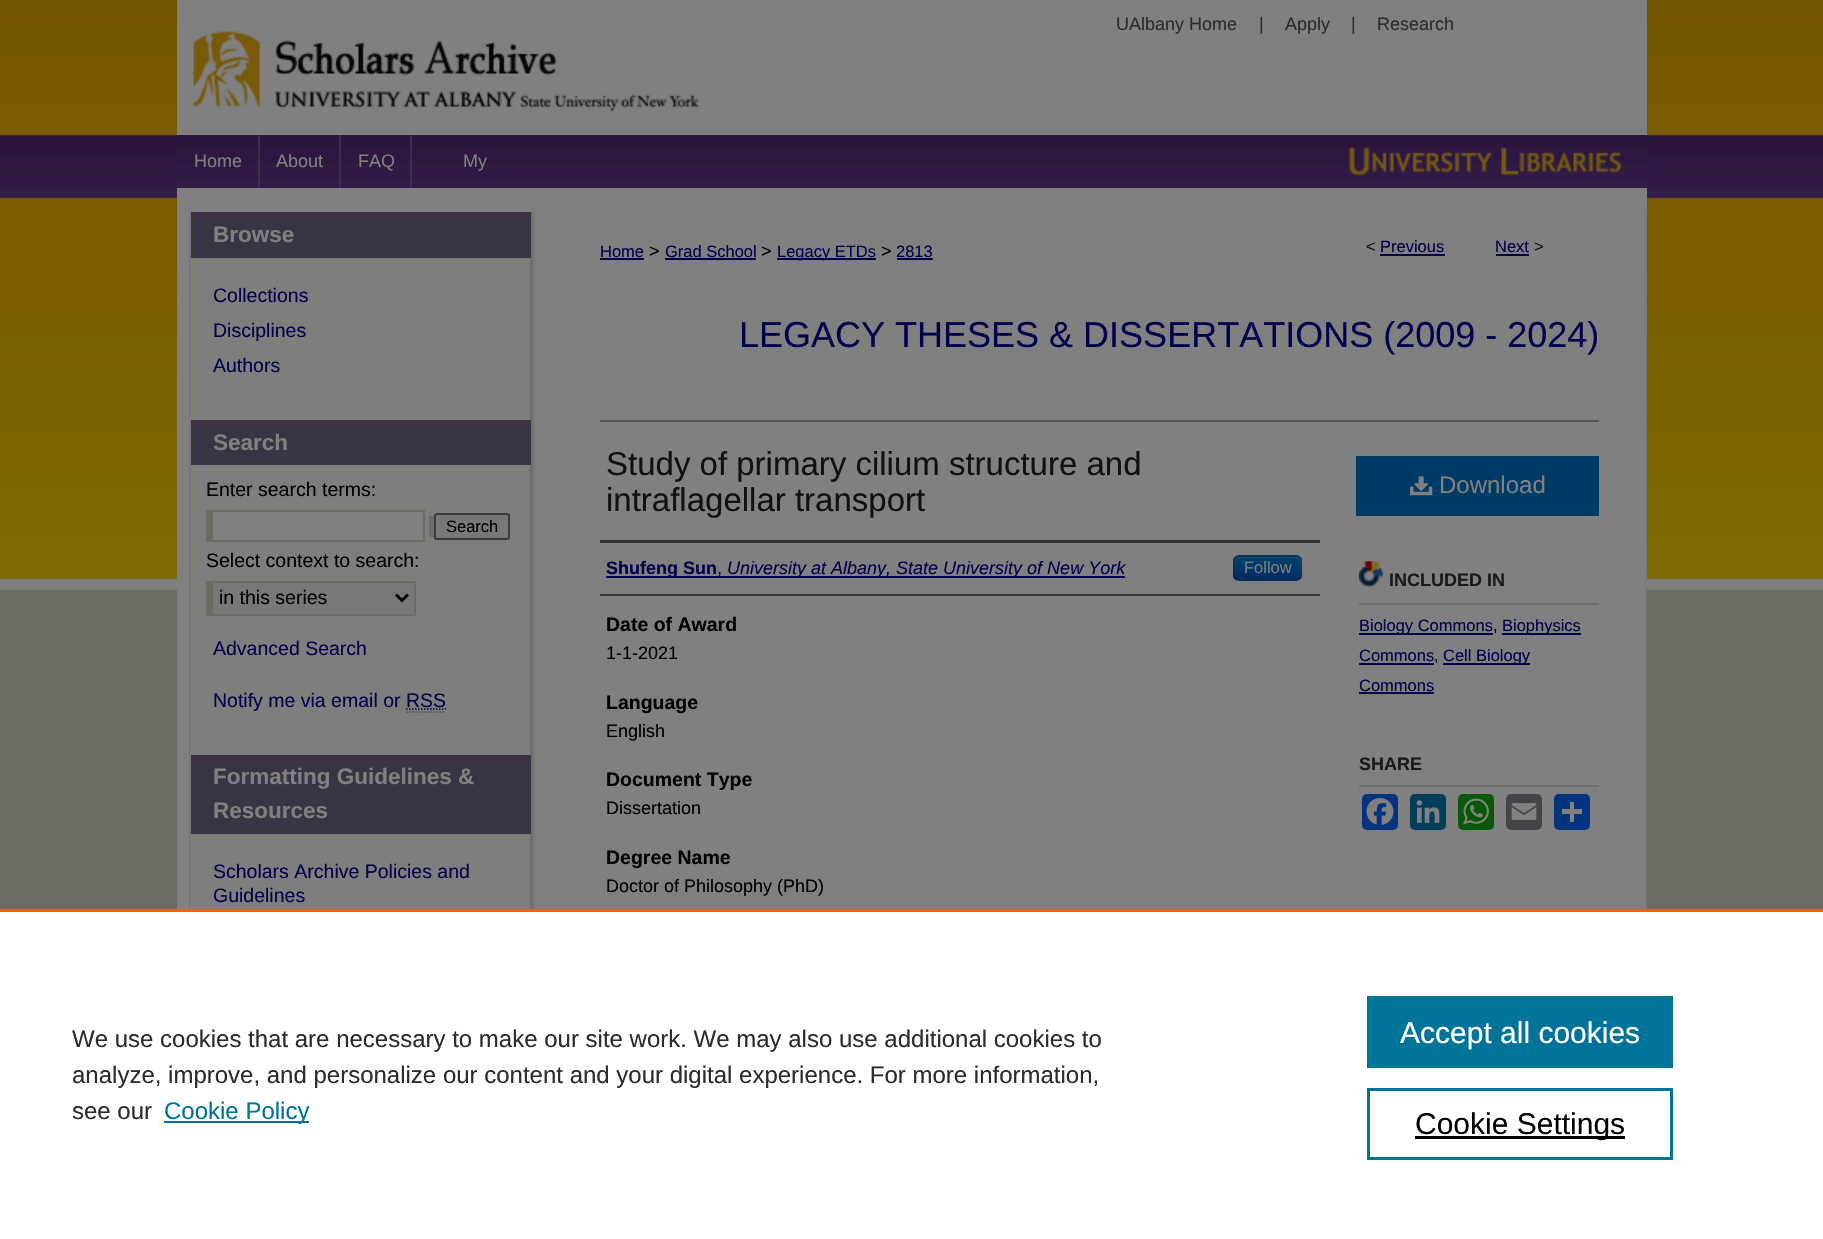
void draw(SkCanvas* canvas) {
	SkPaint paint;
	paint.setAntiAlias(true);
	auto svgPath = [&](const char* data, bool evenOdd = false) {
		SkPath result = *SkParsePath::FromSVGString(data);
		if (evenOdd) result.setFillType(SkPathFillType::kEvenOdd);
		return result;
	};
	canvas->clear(0xff6d6b64);
	canvas->drawImageRect(SkImages::DeferredFromEncodedData(SkData::MakeFromFileName("img1.png")), SkRect::MakeXYWH(0, 0, 1823, 591), SkSamplingOptions());
	paint.setColor(0xff808080);
	canvas->drawRect(SkRect::MakeXYWH(177, 0, 1470, 135), paint);
	SkFont f1(fontMgr->matchFamilyStyle("Liberation Sans", SkFontStyle::Normal()), 18);
	f1.setSubpixel(true);
	paint.setColor(0xff2c2c2c);
	canvas->drawString("UAlbany Home", 1116, 30, f1, paint);
	canvas->drawString("|", 1259, 30, f1, paint);
	canvas->drawString("Apply", 1285, 30, f1, paint);
	canvas->drawString("|", 1351, 30, f1, paint);
	canvas->drawString("Research", 1377, 30, f1, paint);
	canvas->drawImageRect(SkImages::DeferredFromEncodedData(SkData::MakeFromFileName("img2.png")), SkRect::MakeXYWH(193, 31, 507, 81), SkSamplingOptions());
	paint.setColor(0xff2f1a43);
	canvas->drawRect(SkRect::MakeXYWH(177, 187, 1470, 1), paint);
	canvas->drawImageRect(SkImages::DeferredFromEncodedData(SkData::MakeFromFileName("img3.png")), SkRect::MakeXYWH(177, 135, 1470, 53), SkSamplingOptions());
	paint.setColor(0xff808080);
	canvas->drawRect(SkRect::MakeXYWH(177, 188, 1470, 24), paint);
	paint.setColor(0xff3a2f44);
	canvas->drawRect(SkRect::MakeXYWH(258, 135, 2, 53), paint);
	paint.setColor(0xff808080);
	canvas->drawString("Home", 194, 167, f1, paint);
	paint.setColor(0xff3a2f44);
	canvas->drawRect(SkRect::MakeXYWH(339, 135, 2, 53), paint);
	paint.setColor(0xff808080);
	canvas->drawString("About", 276, 167, f1, paint);
	paint.setColor(0xff3a2f44);
	canvas->drawRect(SkRect::MakeXYWH(410, 135, 2, 53), paint);
	paint.setColor(0xff808080);
	canvas->drawString("FAQ", 358, 167, f1, paint);
	canvas->drawString("My", 463, 167, f1, paint);
	canvas->drawImageRect(SkImages::DeferredFromEncodedData(SkData::MakeFromFileName("img4.png")), SkRect::MakeXYWH(1348, 146, 274, 30), SkSamplingOptions());
	canvas->drawRect(SkRect::MakeXYWH(177, 212, 12, 697), paint);
	canvas->drawImageRect(SkImages::DeferredFromEncodedData(SkData::MakeFromFileName("img5.png")), SkRect::MakeXYWH(189, 211, 1458, 698), SkSamplingOptions());
	paint.setColor(0xff3c3344);
	canvas->drawRect(SkRect::MakeXYWH(191, 212, 340, 46), paint);
	SkFont f2(fontMgr->matchFamilyStyle("Liberation Sans", SkFontStyle::Bold()), 22.5);
	f2.setSubpixel(true);
	paint.setColor(0xff808080);
	canvas->drawString("Browse", 213, 242, f2, paint);
	SkFont f3(fontMgr->matchFamilyStyle("Liberation Sans", SkFontStyle::Normal()), 19.5);
	f3.setSubpixel(true);
	paint.setColor(0xff00004d);
	canvas->drawString("Collections", 213, 302, f3, paint);
	canvas->drawString("Disciplines", 213, 337, f3, paint);
	canvas->drawString("Authors", 213, 372, f3, paint);
	paint.setColor(0xff3c3344);
	canvas->drawRect(SkRect::MakeXYWH(191, 420, 340, 45), paint);
	paint.setColor(0xff808080);
	canvas->drawString("Search", 213, 450, f2, paint);
	paint.setColor(0xff000000);
	canvas->drawString("Enter search terms:", 206, 496, f3, paint);
	paint.setColor(0xff6d6b65);
	canvas->drawRect(SkRect::MakeXYWH(206, 510, 219, 32), paint);
	canvas->drawRect(SkRect::MakeXYWH(429, 516, 5, 21), paint);
	paint.setColor(0xff808080);
	canvas->drawRect(SkRect::MakeXYWH(213, 512, 210, 28), paint);
	paint.setColor(0xff787878);
	canvas->drawRoundRect(SkRect::MakeXYWH(435, 514, 74, 25), 2, 2, paint);
	paint.setStroke(true);
	paint.setStrokeWidth(2);
	paint.setColor(0xff3b3b3b);
	canvas->drawRoundRect(SkRect::MakeXYWH(435, 514, 74, 25), 2, 2, paint);
	SkFont f4(fontMgr->matchFamilyStyle("Liberation Sans", SkFontStyle::Normal()), 16.5);
	f4.setSubpixel(true);
	paint.setStroke(false);
	paint.setColor(0xff000000);
	canvas->drawString("Search", 446, 532, f4, paint);
	canvas->drawString("Select context to search:", 206, 567, f3, paint);
	paint.setColor(0xff787878);
	canvas->drawRect(SkRect::MakeXYWH(213, 583, 201, 31), paint);
	paint.setColor(0xff6d6b65);
	canvas->drawRect(SkRect::MakeXYWH(206, 581, 210, 2), paint);
	canvas->drawRect(SkRect::MakeXYWH(414, 581, 2, 34), paint);
	canvas->drawRect(SkRect::MakeXYWH(206, 614, 210, 2), paint);
	canvas->drawRect(SkRect::MakeXYWH(206, 581, 7, 34), paint);
	paint.setStroke(true);
	paint.setStrokeWidth(3);
	paint.setColor(0xff000000);
	canvas->drawPath(svgPath("M396 594.5L402 600.5L408 594.5"), paint);
	paint.setStroke(false);
	canvas->drawString("in this series", 219, 604, f3, paint);
	paint.setColor(0xff00004d);
	canvas->drawString("Advanced Search", 213, 655, f3, paint);
	canvas->drawString("Notify me via email or RSS", 213, 707, f3, paint);
	paint.setStroke(true);
	paint.setStrokeWidth(1.5);
	paint.setPathEffect(SkDashPathEffect::Make({{1.5f, 1.5f}}, 0));
	canvas->drawPath(svgPath("M406 709H446"), paint);
	paint.setPathEffect(nullptr);
	paint.setColor(0xff4d4d4d);
	paint.setPathEffect(SkDashPathEffect::Make({{1.5f, 1.5f}}, 0));
	canvas->drawPath(svgPath("M406.5 712H445.5"), paint);
	paint.setPathEffect(nullptr);
	paint.setStroke(false);
	paint.setColor(0xff3c3344);
	canvas->drawRect(SkRect::MakeXYWH(191, 755, 340, 79), paint);
	paint.setColor(0xff808080);
	canvas->drawString("Formatting Guidelines &", 213, 784, f2, paint);
	canvas->drawString("Resources", 213, 818, f2, paint);
	paint.setColor(0xff00004d);
	canvas->drawString("Scholars Archive Policies and", 213, 878, f3, paint);
	canvas->drawString("Guidelines", 213, 902, f3, paint);
	canvas->drawString("Home", 600, 257, f4, paint);
	canvas->drawRect(SkRect::MakeXYWH(600, 258, 44, 2), paint);
	paint.setColor(0xff000000);
	canvas->drawString(">", 649, 257, f1, paint);
	paint.setColor(0xff00004d);
	canvas->drawString("Grad School", 665, 257, f4, paint);
	canvas->drawRect(SkRect::MakeXYWH(665, 258, 91, 2), paint);
	paint.setColor(0xff000000);
	canvas->drawString(">", 761, 257, f1, paint);
	paint.setColor(0xff00004d);
	canvas->drawRect(SkRect::MakeXYWH(777, 258, 99, 2), paint);
	canvas->drawString("Legacy ETDs", 777, 257, f4, paint);
	paint.setColor(0xff000000);
	canvas->drawString(">", 881, 257, f1, paint);
	paint.setColor(0xff00004d);
	canvas->drawString("2813", 896, 257, f4, paint);
	canvas->drawRect(SkRect::MakeXYWH(897, 258, 36, 2), paint);
	paint.setColor(0xff111111);
	canvas->drawString("<", 1366, 252, f4, paint);
	paint.setColor(0xff00004d);
	canvas->drawString("Previous", 1380, 252, f4, paint);
	canvas->drawRect(SkRect::MakeXYWH(1380, 254, 65, 2), paint);
	canvas->drawString("Next", 1495, 252, f4, paint);
	canvas->drawRect(SkRect::MakeXYWH(1496, 254, 33, 2), paint);
	paint.setColor(0xff111111);
	canvas->drawString(">", 1534, 252, f4, paint);
	SkFont f5(fontMgr->matchFamilyStyle("Liberation Sans", SkFontStyle::Normal()), 36);
	f5.setSubpixel(true);
	paint.setColor(0xff00004d);
	canvas->drawString("LEGACY THESES & DISSERTATIONS (2009 - 2024)", 739, 347, f5, paint);
	paint.setColor(0xff555555);
	canvas->drawRect(SkRect::MakeXYWH(600, 420, 999, 2), paint);
	SkFont f6(fontMgr->matchFamilyStyle("Liberation Sans", SkFontStyle::Normal()), 33);
	f6.setSubpixel(true);
	paint.setColor(0xff111111);
	canvas->drawString("Study of primary cilium structure and", 606, 475, f6, paint);
	canvas->drawString("intraflagellar transport", 606, 511, f6, paint);
	paint.setColor(0xff333333);
	canvas->drawRect(SkRect::MakeXYWH(600, 540, 720, 3), paint);
	canvas->drawRect(SkRect::MakeXYWH(600, 594, 720, 2), paint);
	paint.setColor(0xff00004d);
	canvas->drawRect(SkRect::MakeXYWH(606, 576, 519, 2), paint);
	SkFont f7(fontMgr->matchFamilyStyle("Liberation Sans", SkFontStyle::Bold()), 18);
	f7.setSubpixel(true);
	canvas->drawString("Shufeng Sun", 606, 574, f7, paint);
	canvas->drawString(",", 717, 574, f1, paint);
	SkFont f8(fontMgr->matchFamilyStyle("Liberation Sans", SkFontStyle::Italic()), 18);
	f8.setSubpixel(true);
	canvas->drawString("University at Albany, State University of New York", 727, 574, f8, paint);
	paint.setColor(0xff003a66);
	canvas->drawRoundRect(SkRect::MakeXYWH(1233, 555, 69, 26), 6, 6, paint);
	canvas->save();
	canvas->clipPath(svgPath("M1239 555H1296C1299.5 555 1302 557.5 1302 561V575C1302 578.5 1299.5 581 1296 581H1239C1235.5 581 1233 578.5 1233 575V561C1233 557.5 1235.5 555 1239 555Z"), true);
	{
		const SkColor colors[] = {0xff004466, 0xff002b66};
		const float stops[] = {0, 1};
		const SkPoint ends[] = {{1268, 557}, {1268, 579}};
		paint.setShader(SkGradientShader::MakeLinear(ends, colors, stops, 2, SkTileMode::kClamp));
		paint.setAlpha(255);
	}
	canvas->drawRect(SkRect::MakeXYWH(1233, 557, 69, 22), paint);
	canvas->restore();
	paint.setShader(nullptr);
	paint.setColor(0x33808080);
	canvas->drawPath(svgPath("M1239 558H1286C1298 558 1300 556 1300 567V577C1301 576 1301 575 1301 574V562C1301 559 1299 557 1296 557H1240C1238 557 1237 558 1236 559Z"), paint);
	paint.setStroke(true);
	paint.setColor(0x40000000);
	canvas->drawPath(svgPath("M1299.5 578C1298.5 579 1297.5 580 1296 580H1239C1237.5 580 1236.5 579 1235.5 578"), paint);
	paint.setColor(0x1a000000);
	canvas->drawPath(svgPath("M1235.5 578C1232.5 575.5 1234 571 1234 568C1234 554.5 1234.5 556 1248.5 556H1286.5C1300.5 556 1301 554.5 1301 568C1301 571 1302.5 575.5 1299.5 578"), paint);
	paint.setStroke(false);
	paint.setColor(0xff808080);
	canvas->drawString("Follow", 1244, 573, f4, paint);
	SkFont f9(fontMgr->matchFamilyStyle("Liberation Sans", SkFontStyle::Bold()), 19.5);
	f9.setSubpixel(true);
	paint.setColor(0xff000000);
	canvas->drawString("Date of Award", 606, 631, f9, paint);
	canvas->drawString("1-1-2021", 606, 659, f1, paint);
	canvas->drawString("Language", 606, 709, f9, paint);
	canvas->drawString("English", 606, 737, f1, paint);
	canvas->drawString("Document Type", 606, 786, f9, paint);
	canvas->drawString("Dissertation", 606, 814, f1, paint);
	canvas->drawString("Degree Name", 606, 864, f9, paint);
	canvas->drawString("Doctor of Philosophy (PhD)", 606, 892, f1, paint);
	paint.setColor(0xff003a66);
	canvas->drawRect(SkRect::MakeXYWH(1356, 456, 243, 60), paint);
	canvas->drawImageRect(SkImages::DeferredFromEncodedData(SkData::MakeFromFileName("img6.png")), SkRect::MakeXYWH(1410, 476, 23, 20), SkSamplingOptions());
	SkFont f10(fontMgr->matchFamilyStyle("Liberation Sans", SkFontStyle::Normal()), 24);
	f10.setSubpixel(true);
	paint.setColor(0xff808080);
	canvas->drawString("Download", 1439, 493, f10, paint);
	canvas->drawImageRect(SkImages::DeferredFromEncodedData(SkData::MakeFromFileName("img7.png")), SkRect::MakeXYWH(1359, 561, 24, 26), SkSamplingOptions());
	paint.setColor(0xff6f6f6f);
	canvas->drawRect(SkRect::MakeXYWH(1359, 603, 240, 2), paint);
	paint.setColor(0xff1a1a1a);
	canvas->drawString("INCLUDED IN", 1389, 586, f7, paint);
	paint.setColor(0xff00004d);
	canvas->drawRect(SkRect::MakeXYWH(1359, 633, 134, 2), paint);
	canvas->drawString("Biology Commons", 1359, 631, f4, paint);
	paint.setColor(0xff000000);
	canvas->drawString(",", 1493, 631, f4, paint);
	paint.setColor(0xff00004d);
	canvas->drawRect(SkRect::MakeXYWH(1502, 633, 79, 2), paint);
	canvas->drawString("Biophysics", 1502, 631, f4, paint);
	canvas->drawString("Commons", 1359, 661, f4, paint);
	canvas->drawRect(SkRect::MakeXYWH(1359, 663, 75, 2), paint);
	paint.setColor(0xff000000);
	canvas->drawString(",", 1434, 661, f4, paint);
	paint.setColor(0xff00004d);
	canvas->drawRect(SkRect::MakeXYWH(1443, 663, 87, 2), paint);
	canvas->drawString("Cell Biology", 1443, 661, f4, paint);
	canvas->drawString("Commons", 1359, 691, f4, paint);
	canvas->drawRect(SkRect::MakeXYWH(1359, 692, 75, 2), paint);
	paint.setColor(0xff6f6f6f);
	canvas->drawRect(SkRect::MakeXYWH(1359, 785, 240, 2), paint);
	paint.setColor(0xff1a1a1a);
	canvas->drawString("SHARE", 1359, 770, f7, paint);
	paint.setColor(0xff043380);
	canvas->drawRoundRect(SkRect::MakeXYWH(1362, 794, 36, 36), 5, 5, paint);
	canvas->drawImageRect(SkImages::DeferredFromEncodedData(SkData::MakeFromFileName("img8.png")), SkRect::MakeXYWH(1366, 798, 28, 27), SkSamplingOptions());
	paint.setColor(0xff003e5b);
	canvas->drawRoundRect(SkRect::MakeXYWH(1410, 794, 36, 36), 5, 5, paint);
	canvas->drawImageRect(SkImages::DeferredFromEncodedData(SkData::MakeFromFileName("img9.png")), SkRect::MakeXYWH(1416, 800, 24, 23), SkSamplingOptions());
	paint.setColor(0xff095805);
	canvas->drawRoundRect(SkRect::MakeXYWH(1458, 794, 36, 36), 5, 5, paint);
	canvas->drawImageRect(SkImages::DeferredFromEncodedData(SkData::MakeFromFileName("img10.png")), SkRect::MakeXYWH(1463, 798, 26, 27), SkSamplingOptions());
	paint.setColor(0xff444548);
	canvas->drawRoundRect(SkRect::MakeXYWH(1506, 794, 36, 36), 5, 5, paint);
	canvas->drawImageRect(SkImages::DeferredFromEncodedData(SkData::MakeFromFileName("img11.png")), SkRect::MakeXYWH(1511, 803, 26, 17), SkSamplingOptions());
	paint.setColor(0xff013380);
	canvas->drawRoundRect(SkRect::MakeXYWH(1554, 794, 36, 36), 5, 5, paint);
	paint.setColor(0xff808080);
	canvas->drawRect(SkRect::MakeXYWH(1570, 802, 4, 20), paint);
	canvas->drawRect(SkRect::MakeXYWH(1562, 809, 20, 5), paint);
	paint.setColor(0xffffffff);
	canvas->drawRect(SkRect::MakeXYWH(0, 912, 1823, 327), paint);
	paint.setColor(0xffeb6500);
	canvas->drawRect(SkRect::MakeXYWH(0, 909, 1823, 3), paint);
	paint.setColor(0xff2c2c2c);
	canvas->drawString("We use cookies that are necessary to make our site work. We may also use additional cookies to", 72, 1047, f10, paint);
	canvas->drawString("analyze, improve, and personalize our content and your digital experience. For more information,", 72, 1083, f10, paint);
	canvas->drawString("see our", 72, 1119, f10, paint);
	paint.setColor(0xff007398);
	canvas->drawRect(SkRect::MakeXYWH(164, 1121, 145, 2), paint);
	canvas->drawString("Cookie Policy", 164, 1119, f10, paint);
	canvas->drawRect(SkRect::MakeXYWH(1367, 996, 306, 72), paint);
	SkFont f11(fontMgr->matchFamilyStyle("Liberation Sans", SkFontStyle::Normal()), 30);
	f11.setSubpixel(true);
	paint.setColor(0xffffffff);
	canvas->drawString("Accept all cookies", 1400, 1043, f11, paint);
	paint.setStroke(true);
	paint.setStrokeWidth(3);
	paint.setColor(0xff007398);
	canvas->drawRect(SkRect::MakeXYWH(1368.5, 1089.5, 303, 69), paint);
	paint.setStroke(false);
	paint.setColor(0xff000000);
	canvas->drawRect(SkRect::MakeXYWH(1415, 1136, 210, 3), paint);
	canvas->drawString("Cookie Settings", 1415, 1134, f11, paint);
}
